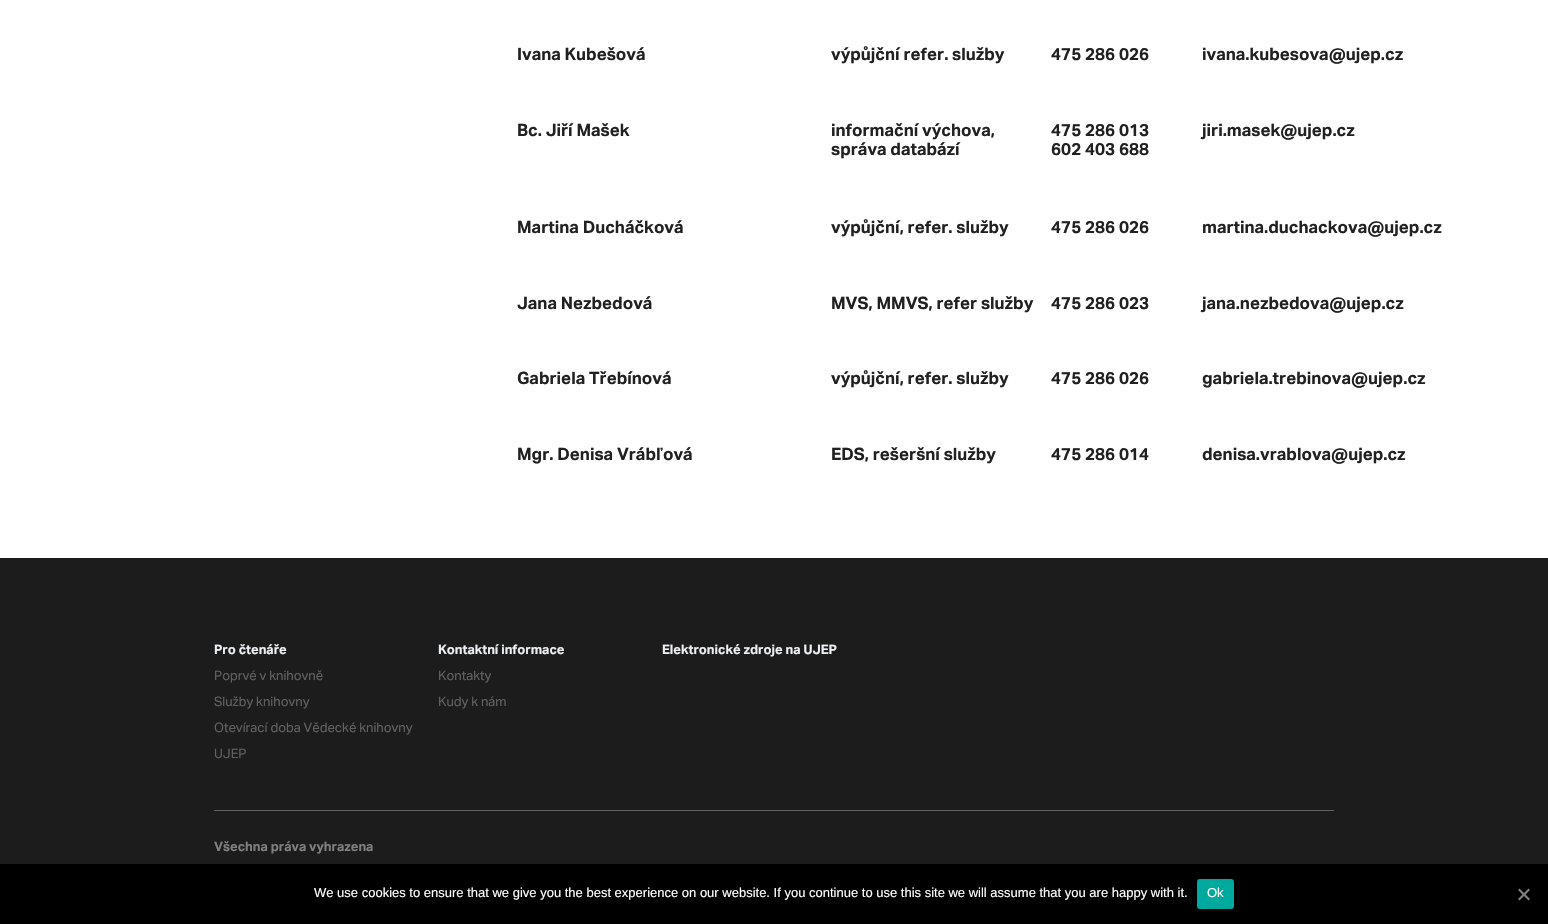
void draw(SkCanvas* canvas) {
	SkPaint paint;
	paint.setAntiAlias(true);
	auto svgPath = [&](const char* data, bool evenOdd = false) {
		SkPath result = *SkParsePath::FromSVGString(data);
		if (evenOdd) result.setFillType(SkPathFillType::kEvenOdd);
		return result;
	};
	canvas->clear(0xffffffff);
	SkFont f1(fontMgr->matchFamilyStyle("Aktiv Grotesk", SkFontStyle::Bold()), 17);
	f1.setSubpixel(true);
	paint.setColor(0xff212121);
	canvas->drawString("Ivana Kubešová", 517, 60, f1, paint);
	canvas->drawString("výpůjční refer. služby", 831, 60, f1, paint);
	canvas->drawString("475 286 026", 1051, 60, f1, paint);
	canvas->drawString("ivana.kubesova@ujep.cz", 1202, 60, f1, paint);
	canvas->drawString("Bc. Jiří Mašek", 517, 136, f1, paint);
	canvas->drawString("informační výchova,", 831, 136, f1, paint);
	canvas->drawString("správa databází", 831, 155, f1, paint);
	canvas->drawString("475 286 013", 1051, 136, f1, paint);
	canvas->drawString("602 403 688", 1051, 155, f1, paint);
	canvas->drawString("jiri.masek@ujep.cz", 1202, 136, f1, paint);
	canvas->drawString("Martina Ducháčková", 517, 233, f1, paint);
	canvas->drawString("výpůjční, refer. služby", 831, 233, f1, paint);
	canvas->drawString("475 286 026", 1051, 233, f1, paint);
	canvas->drawString("martina.duchackova@ujep.cz", 1202, 233, f1, paint);
	canvas->drawString("Jana Nezbedová", 517, 309, f1, paint);
	canvas->drawString("MVS, MMVS, refer služby", 831, 309, f1, paint);
	canvas->drawString("475 286 023", 1051, 309, f1, paint);
	canvas->drawString("jana.nezbedova@ujep.cz", 1202, 309, f1, paint);
	canvas->drawString("Gabriela Třebínová", 517, 384, f1, paint);
	canvas->drawString("výpůjční, refer. služby", 831, 384, f1, paint);
	canvas->drawString("475 286 026", 1051, 384, f1, paint);
	canvas->drawString("gabriela.trebinova@ujep.cz", 1202, 384, f1, paint);
	canvas->drawString("Mgr. Denisa Vráb", 517, 460, f1, paint);
	SkFont f2(fontMgr->matchFamilyStyle("Liberation Sans", SkFontStyle::Bold()), 17);
	f2.setSubpixel(true);
	canvas->drawString("ľ", 656, 460, f2, paint);
	canvas->drawString("ová", 663, 460, f1, paint);
	canvas->drawString("EDS, rešeršní služby", 831, 460, f1, paint);
	canvas->drawString("475 286 014", 1051, 460, f1, paint);
	canvas->drawString("denisa.vrablova@ujep.cz", 1202, 460, f1, paint);
	paint.setColor(0xff1c1c1c);
	canvas->drawRect(SkRect::MakeXYWH(0, 558, 1548, 306), paint);
	paint.setColor(0xff616161);
	canvas->drawRect(SkRect::MakeXYWH(214, 810, 1120, 1), paint);
	SkFont f3(fontMgr->matchFamilyStyle("Aktiv Grotesk", SkFontStyle::Bold()), 13);
	f3.setSubpixel(true);
	paint.setColor(0xffecf0f4);
	canvas->drawString("Pro čtenáře", 214, 654, f3, paint);
	SkFont f4(fontMgr->matchFamilyStyle("Aktiv Grotesk", SkFontStyle::Normal()), 13);
	f4.setSubpixel(true);
	paint.setColor(0xff616161);
	canvas->drawString("Poprvé v knihovně", 214, 680, f4, paint);
	canvas->drawString("Služby knihovny", 214, 706, f4, paint);
	canvas->drawString("Otevírací doba Vědecké knihovny", 214, 732, f4, paint);
	canvas->drawString("UJEP", 214, 758, f4, paint);
	paint.setColor(0xffecf0f4);
	canvas->drawString("Kontaktní informace", 438, 654, f3, paint);
	paint.setColor(0xff616161);
	canvas->drawString("Kontakty", 438, 680, f4, paint);
	canvas->drawString("Kudy k nám", 438, 706, f4, paint);
	paint.setColor(0xffecf0f4);
	canvas->drawString("Elektronické zdroje na UJEP", 662, 654, f3, paint);
	paint.setColor(0xff808080);
	canvas->drawString("Všechna práva vyhrazena", 214, 851, f3, paint);
	paint.setColor(0xff000000);
	canvas->drawRect(SkRect::MakeXYWH(0, 864, 1548, 60), paint);
	SkFont f5(fontMgr->matchFamilyStyle("Liberation Sans", SkFontStyle::Normal()), 13);
	f5.setSubpixel(true);
	paint.setColor(0xffffffff);
	canvas->drawString("We use cookies to ensure that we give you the best experience on our website. If you continue to use this site we will assume that you are happy with it.", 314, 897, f5, paint);
	paint.setColor(0xff00a99d);
	canvas->drawRoundRect(SkRect::MakeXYWH(1197, 879, 37, 30), 3, 3, paint);
	paint.setColor(0xffffffff);
	canvas->drawString("Ok", 1207, 897, f5, paint);
	paint.setColor(0xff808080);
	canvas->drawPath(svgPath("M1528.5 888.5L1530 890L1519.5 900.5L1518 899Z"), paint);
	canvas->drawPath(svgPath("M1518 890L1519.5 888.5L1530 899L1528.5 900.5Z"), paint);
}
